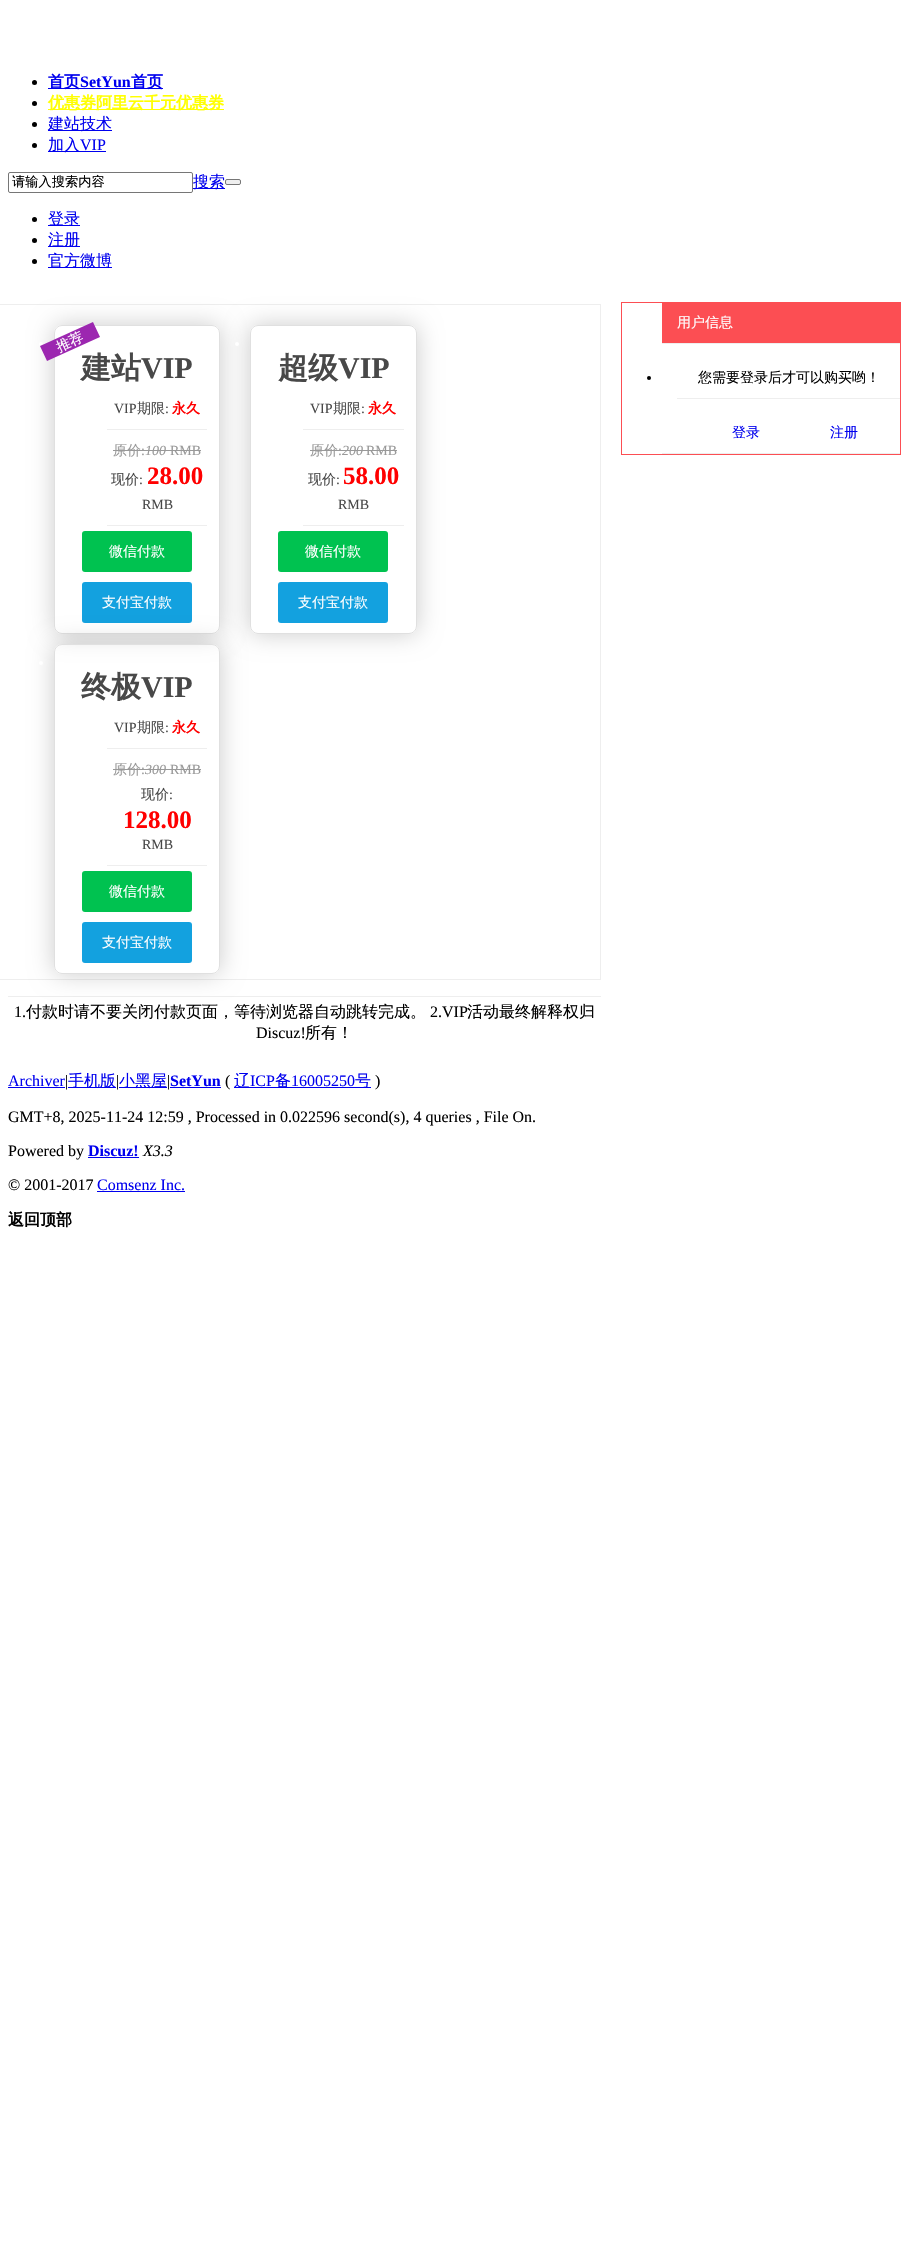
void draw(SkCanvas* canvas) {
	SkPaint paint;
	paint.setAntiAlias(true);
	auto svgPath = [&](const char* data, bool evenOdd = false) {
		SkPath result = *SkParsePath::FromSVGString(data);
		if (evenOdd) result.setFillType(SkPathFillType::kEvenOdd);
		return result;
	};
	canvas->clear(0xffffffff);
	paint.setColor(0xff000000);
	canvas->drawCircle(34.5, 82.5, 2.5, paint);
	paint.setColor(0xff0000ee);
	canvas->drawRect(SkRect::MakeXYWH(48, 88, 115, 1), paint);
	SkFont f1(fontMgr->matchFamilyStyle("WenQuanYi Zen Hei", SkFontStyle::Bold()), 16);
	f1.setSubpixel(true);
	canvas->drawString("首页", 48, 87, f1, paint);
	SkFont f2(fontMgr->matchFamilyStyle("Liberation Serif", SkFontStyle::Bold()), 16);
	f2.setSubpixel(true);
	canvas->drawString("SetYun", 80, 87, f2, paint);
	canvas->drawString("首页", 131, 87, f1, paint);
	paint.setColor(0xff000000);
	canvas->drawCircle(34.5, 103.5, 2.5, paint);
	paint.setColor(0xffffff00);
	canvas->drawRect(SkRect::MakeXYWH(48, 109, 176, 1), paint);
	canvas->drawString("优惠券阿里云千元优惠券", 48, 108, f1, paint);
	paint.setColor(0xff000000);
	canvas->drawCircle(34.5, 124.5, 2.5, paint);
	paint.setColor(0xff0000ee);
	canvas->drawRect(SkRect::MakeXYWH(48, 130, 64, 1), paint);
	SkFont f3(fontMgr->matchFamilyStyle("WenQuanYi Zen Hei", SkFontStyle(500, SkFontStyle::kNormal_Width, SkFontStyle::kUpright_Slant)), 16);
	f3.setSubpixel(true);
	canvas->drawString("建站技术", 48, 129, f3, paint);
	paint.setColor(0xff000000);
	canvas->drawCircle(34.5, 145.5, 2.5, paint);
	paint.setColor(0xff0000ee);
	canvas->drawRect(SkRect::MakeXYWH(48, 151, 58, 1), paint);
	canvas->drawString("加入", 48, 150, f3, paint);
	SkFont f4(fontMgr->matchFamilyStyle("Liberation Serif", SkFontStyle::Normal()), 16);
	f4.setSubpixel(true);
	canvas->drawString("VIP", 80, 150, f4, paint);
	paint.setStroke(true);
	paint.setStrokeWidth(1);
	paint.setColor(0xff767676);
	canvas->drawRoundRect(SkRect::MakeXYWH(8.5, 172.5, 184, 20), 1.5, 1.5, paint);
	SkFont f5(fontMgr->matchFamilyStyle("WenQuanYi Zen Hei", SkFontStyle(500, SkFontStyle::kNormal_Width, SkFontStyle::kUpright_Slant)), 13.25);
	f5.setSubpixel(true);
	paint.setStroke(false);
	paint.setColor(0xff000000);
	canvas->drawString("请输入搜索内容", 12, 186, f5, paint);
	paint.setColor(0xff0000ee);
	canvas->drawRect(SkRect::MakeXYWH(193, 188, 32, 1), paint);
	canvas->drawString("搜索", 193, 187, f3, paint);
	paint.setColor(0xffefefef);
	canvas->drawRoundRect(SkRect::MakeXYWH(225.5, 179.5, 15, 5), 1.5, 1.5, paint);
	paint.setStroke(true);
	paint.setColor(0xff767676);
	canvas->drawRoundRect(SkRect::MakeXYWH(225.5, 179.5, 15, 5), 1.5, 1.5, paint);
	paint.setStroke(false);
	paint.setColor(0xff000000);
	canvas->drawCircle(34.5, 219.5, 2.5, paint);
	paint.setColor(0xff0000ee);
	canvas->drawRect(SkRect::MakeXYWH(48, 225, 32, 1), paint);
	canvas->drawString("登录", 48, 224, f3, paint);
	paint.setColor(0xff000000);
	canvas->drawCircle(34.5, 240.5, 2.5, paint);
	paint.setColor(0xff0000ee);
	canvas->drawRect(SkRect::MakeXYWH(48, 246, 32, 1), paint);
	canvas->drawString("注册", 48, 245, f3, paint);
	paint.setColor(0xff000000);
	canvas->drawCircle(34.5, 261.5, 2.5, paint);
	paint.setColor(0xff0000ee);
	canvas->drawRect(SkRect::MakeXYWH(48, 267, 64, 1), paint);
	canvas->drawString("官方微博", 48, 266, f3, paint);
	paint.setStroke(true);
	paint.setColor(0xffeeeeee);
	canvas->drawRect(SkRect::MakeXYWH(-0.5, 304.5, 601, 675), paint);
	canvas->save();
	canvas->clipPath(svgPath("M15 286H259V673H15ZM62 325H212C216.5 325 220 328.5 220 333V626C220 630.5 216.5 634 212 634H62C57.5 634 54 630.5 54 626V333C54 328.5 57.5 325 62 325Z", true), true);
	paint.setStroke(false);
	paint.setColor(0x33000000);
	paint.setMaskFilter(SkMaskFilter::MakeBlur(kNormal_SkBlurStyle, 12.5));
	canvas->drawRoundRect(SkRect::MakeXYWH(54, 325, 166, 309), 8, 8, paint);
	paint.setMaskFilter(nullptr);
	canvas->restore();
	paint.setStroke(true);
	paint.setColor(0xffe0e0e0);
	canvas->drawRoundRect(SkRect::MakeXYWH(54.5, 325.5, 165, 308), 7.5, 7.5, paint);
	paint.setStroke(false);
	paint.setColor(0xffffffff);
	canvas->drawCircle(41, 344, 2, paint);
	SkFont f6(fontMgr->matchFamilyStyle("WenQuanYi Zen Hei", SkFontStyle::Bold()), 30);
	f6.setSubpixel(true);
	paint.setColor(0xff484848);
	canvas->drawString("建站", 81, 378, f6, paint);
	paint.setColor(0xff9c27b0);
	canvas->drawPath(svgPath("M40 346L93 322L100 337L47 361Z"), paint);
	SkFont f7(fontMgr->matchFamilyStyle("WenQuanYi Zen Hei", SkFontStyle(500, SkFontStyle::kNormal_Width, SkFontStyle::kUpright_Slant)), 14);
	f7.setSubpixel(true);
	paint.setColor(0xffffffff);
	canvas->save();
	canvas->rotate(-25, 59, 352);
	canvas->drawString("推荐", 59, 352, f7, paint);
	canvas->restore();
	SkFont f8(fontMgr->matchFamilyStyle("Liberation Serif", SkFontStyle::Bold()), 30);
	f8.setSubpixel(true);
	paint.setColor(0xff484848);
	canvas->drawString("VIP", 141, 378, f8, paint);
	paint.setColor(0xffeeeeee);
	canvas->drawRect(SkRect::MakeXYWH(107, 429, 100, 1), paint);
	SkFont f9(fontMgr->matchFamilyStyle("Liberation Serif", SkFontStyle::Normal()), 14);
	f9.setSubpixel(true);
	paint.setColor(0xff484848);
	canvas->drawString("VIP", 114, 413, f9, paint);
	canvas->drawString("期限", 137, 413, f7, paint);
	canvas->drawString(":", 165, 413, f9, paint);
	SkFont f10(fontMgr->matchFamilyStyle("WenQuanYi Zen Hei", SkFontStyle::Bold()), 14);
	f10.setSubpixel(true);
	paint.setColor(0xffff0000);
	canvas->drawString("永久", 172, 413, f10, paint);
	paint.setColor(0xffeeeeee);
	canvas->drawRect(SkRect::MakeXYWH(107, 525, 100, 1), paint);
	paint.setColor(0xff999999);
	canvas->drawString("原价", 113, 455, f7, paint);
	canvas->drawString(":", 141, 455, f9, paint);
	SkFont f11(fontMgr->matchFamilyStyle("Liberation Serif", SkFontStyle::Italic()), 14);
	f11.setSubpixel(true);
	canvas->drawString("100", 145, 455, f11, paint);
	canvas->drawRect(SkRect::MakeXYWH(113, 450, 32, 1), paint);
	canvas->drawRect(SkRect::MakeXYWH(145, 450, 21, 1), paint);
	canvas->drawRect(SkRect::MakeXYWH(166, 450, 35, 1), paint);
	canvas->drawString("RMB", 170, 455, f9, paint);
	paint.setColor(0xff484848);
	canvas->drawString("现价", 111, 484, f7, paint);
	canvas->drawString(":", 139, 484, f9, paint);
	SkFont f12(fontMgr->matchFamilyStyle("Liberation Serif", SkFontStyle::Bold()), 25);
	f12.setSubpixel(true);
	paint.setColor(0xffff0000);
	canvas->drawString("28.00", 147, 484, f12, paint);
	paint.setColor(0xff484848);
	canvas->drawString("RMB", 142, 509, f9, paint);
	paint.setColor(0xff00c250);
	canvas->drawRoundRect(SkRect::MakeXYWH(82, 531, 110, 41), 3, 3, paint);
	paint.setColor(0xffffffff);
	canvas->drawString("微信付款", 109, 556, f7, paint);
	paint.setColor(0xff13a1df);
	canvas->drawRoundRect(SkRect::MakeXYWH(82, 582, 110, 41), 3, 3, paint);
	paint.setColor(0xffffffff);
	canvas->drawString("支付宝付款", 102, 607, f7, paint);
	canvas->save();
	canvas->clipPath(svgPath("M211 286H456V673H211ZM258 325H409C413.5 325 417 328.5 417 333V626C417 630.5 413.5 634 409 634H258C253.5 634 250 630.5 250 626V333C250 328.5 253.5 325 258 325Z", true), true);
	paint.setColor(0x33000000);
	paint.setMaskFilter(SkMaskFilter::MakeBlur(kNormal_SkBlurStyle, 12.5));
	canvas->drawRoundRect(SkRect::MakeXYWH(250, 325, 167, 309), 8, 8, paint);
	paint.setMaskFilter(nullptr);
	canvas->restore();
	paint.setStroke(true);
	paint.setColor(0xffe0e0e0);
	canvas->drawRoundRect(SkRect::MakeXYWH(250.5, 325.5, 166, 308), 7.5, 7.5, paint);
	paint.setStroke(false);
	paint.setColor(0xffffffff);
	canvas->drawCircle(237, 344, 2, paint);
	paint.setColor(0xff484848);
	canvas->drawString("超级", 278, 378, f6, paint);
	canvas->drawString("VIP", 338, 378, f8, paint);
	paint.setColor(0xffeeeeee);
	canvas->drawRect(SkRect::MakeXYWH(303, 429, 101, 1), paint);
	paint.setColor(0xff484848);
	canvas->drawString("VIP", 310, 413, f9, paint);
	canvas->drawString("期限", 333, 413, f7, paint);
	canvas->drawString(":", 361, 413, f9, paint);
	paint.setColor(0xffff0000);
	canvas->drawString("永久", 368, 413, f10, paint);
	paint.setColor(0xffeeeeee);
	canvas->drawRect(SkRect::MakeXYWH(303, 525, 101, 1), paint);
	paint.setColor(0xff999999);
	canvas->drawString("原价", 310, 455, f7, paint);
	canvas->drawString(":", 338, 455, f9, paint);
	canvas->drawRect(SkRect::MakeXYWH(310, 450, 32, 1), paint);
	canvas->drawString("200", 342, 455, f11, paint);
	canvas->drawRect(SkRect::MakeXYWH(342, 450, 21, 1), paint);
	canvas->drawRect(SkRect::MakeXYWH(363, 450, 34, 1), paint);
	canvas->drawString("RMB", 366, 455, f9, paint);
	paint.setColor(0xff484848);
	canvas->drawString("现价", 308, 484, f7, paint);
	canvas->drawString(":", 336, 484, f9, paint);
	paint.setColor(0xffff0000);
	canvas->drawString("58.00", 343, 484, f12, paint);
	paint.setColor(0xff484848);
	canvas->drawString("RMB", 338, 509, f9, paint);
	paint.setColor(0xff00c250);
	canvas->drawRoundRect(SkRect::MakeXYWH(278, 531, 110, 41), 3, 3, paint);
	paint.setColor(0xffffffff);
	canvas->drawString("微信付款", 305, 556, f7, paint);
	paint.setColor(0xff13a1df);
	canvas->drawRoundRect(SkRect::MakeXYWH(278, 582, 110, 41), 3, 3, paint);
	paint.setColor(0xffffffff);
	canvas->drawString("支付宝付款", 298, 607, f7, paint);
	paint.setColor(0xffeeeeee);
	canvas->drawRect(SkRect::MakeXYWH(8, 996, 593, 1), paint);
	canvas->save();
	canvas->clipPath(svgPath("M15 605H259V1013H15ZM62 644H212C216.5 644 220 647.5 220 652V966C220 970.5 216.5 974 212 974H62C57.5 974 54 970.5 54 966V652C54 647.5 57.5 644 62 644Z", true), true);
	paint.setColor(0x33000000);
	paint.setMaskFilter(SkMaskFilter::MakeBlur(kNormal_SkBlurStyle, 12.5));
	canvas->drawRoundRect(SkRect::MakeXYWH(54, 644, 166, 330), 8, 8, paint);
	paint.setMaskFilter(nullptr);
	canvas->restore();
	paint.setStroke(true);
	paint.setColor(0xffe0e0e0);
	canvas->drawRoundRect(SkRect::MakeXYWH(54.5, 644.5, 165, 329), 7.5, 7.5, paint);
	paint.setStroke(false);
	paint.setColor(0xffffffff);
	canvas->drawCircle(41, 663, 2, paint);
	paint.setColor(0xff484848);
	canvas->drawString("终极", 81, 697, f6, paint);
	canvas->drawString("VIP", 141, 697, f8, paint);
	paint.setColor(0xffeeeeee);
	canvas->drawRect(SkRect::MakeXYWH(107, 748, 100, 1), paint);
	paint.setColor(0xff484848);
	canvas->drawString("VIP", 114, 732, f9, paint);
	canvas->drawString("期限", 137, 732, f7, paint);
	canvas->drawString(":", 165, 732, f9, paint);
	paint.setColor(0xffff0000);
	canvas->drawString("永久", 172, 732, f10, paint);
	paint.setColor(0xffeeeeee);
	canvas->drawRect(SkRect::MakeXYWH(107, 865, 100, 1), paint);
	paint.setColor(0xff999999);
	canvas->drawString("原价", 113, 774, f7, paint);
	canvas->drawString(":", 141, 774, f9, paint);
	canvas->drawString("300", 145, 774, f11, paint);
	canvas->drawRect(SkRect::MakeXYWH(113, 769, 32, 1), paint);
	canvas->drawRect(SkRect::MakeXYWH(145, 769, 21, 1), paint);
	canvas->drawRect(SkRect::MakeXYWH(166, 769, 35, 1), paint);
	canvas->drawString("RMB", 170, 774, f9, paint);
	paint.setColor(0xff484848);
	canvas->drawString("现价", 141, 799, f7, paint);
	canvas->drawString(":", 169, 799, f9, paint);
	paint.setColor(0xffff0000);
	canvas->drawString("128.00", 123, 828, f12, paint);
	paint.setColor(0xff484848);
	canvas->drawString("RMB", 142, 849, f9, paint);
	paint.setColor(0xff00c250);
	canvas->drawRoundRect(SkRect::MakeXYWH(82, 871, 110, 41), 3, 3, paint);
	paint.setColor(0xffffffff);
	canvas->drawString("微信付款", 109, 896, f7, paint);
	paint.setColor(0xff13a1df);
	canvas->drawRoundRect(SkRect::MakeXYWH(82, 922, 110, 41), 3, 3, paint);
	paint.setColor(0xffffffff);
	canvas->drawString("支付宝付款", 102, 947, f7, paint);
	paint.setColor(0xff000000);
	canvas->drawString("1.", 14, 1017, f4, paint);
	canvas->drawString("付款时请不要关闭付款页面，等待浏览器自动跳转完成。", 26, 1017, f3, paint);
	canvas->drawString("2.VIP", 430, 1017, f4, paint);
	canvas->drawString("活动最终解释权归", 467, 1017, f3, paint);
	canvas->drawString("Discuz!", 256, 1038, f4, paint);
	canvas->drawString("所有！", 305, 1038, f3, paint);
	paint.setStroke(true);
	paint.setColor(0xfffc4e53);
	canvas->drawRect(SkRect::MakeXYWH(621.5, 302.5, 279, 152), paint);
	paint.setStroke(false);
	canvas->drawRect(SkRect::MakeXYWH(662, 303, 238, 40), paint);
	paint.setColor(0xffeeeeee);
	canvas->drawRect(SkRect::MakeXYWH(662, 343, 238, 1), paint);
	paint.setColor(0xffffffff);
	canvas->drawString("用户信息", 677, 327, f7, paint);
	paint.setColor(0xffeeeeee);
	canvas->drawRect(SkRect::MakeXYWH(662, 453, 238, 1), paint);
	paint.setColor(0xff000000);
	canvas->drawCircle(649, 378, 2, paint);
	paint.setColor(0xffeeeeee);
	canvas->drawRect(SkRect::MakeXYWH(677, 398, 223, 1), paint);
	paint.setColor(0xff000000);
	canvas->drawString("您需要登录后才可以购买哟！", 698, 382, f7, paint);
	paint.setColor(0xff0000ee);
	canvas->drawString("登录", 732, 437, f7, paint);
	canvas->drawString("注册", 830, 437, f7, paint);
	canvas->drawString("Archiver", 8, 1086, f4, paint);
	canvas->drawRect(SkRect::MakeXYWH(8, 1087, 57, 1), paint);
	paint.setColor(0xff000000);
	canvas->drawString("|", 65, 1086, f4, paint);
	paint.setColor(0xff0000ee);
	canvas->drawRect(SkRect::MakeXYWH(68, 1087, 48, 1), paint);
	canvas->drawString("手机版", 68, 1086, f3, paint);
	paint.setColor(0xff000000);
	canvas->drawString("|", 116, 1086, f4, paint);
	paint.setColor(0xff0000ee);
	canvas->drawRect(SkRect::MakeXYWH(119, 1087, 48, 1), paint);
	canvas->drawString("小黑屋", 119, 1086, f3, paint);
	paint.setColor(0xff000000);
	canvas->drawString("|", 167, 1086, f4, paint);
	paint.setColor(0xff0000ee);
	canvas->drawString("SetYun", 170, 1086, f2, paint);
	canvas->drawRect(SkRect::MakeXYWH(170, 1087, 51, 1), paint);
	paint.setColor(0xff000000);
	canvas->drawString("(", 225, 1086, f4, paint);
	paint.setColor(0xff0000ee);
	canvas->drawRect(SkRect::MakeXYWH(234, 1087, 137, 1), paint);
	canvas->drawString("辽", 234, 1086, f3, paint);
	canvas->drawString("ICP", 250, 1086, f4, paint);
	canvas->drawString("备", 275, 1086, f3, paint);
	canvas->drawString("16005250", 291, 1086, f4, paint);
	canvas->drawString("号", 355, 1086, f3, paint);
	paint.setColor(0xff000000);
	canvas->drawString(")", 375, 1086, f4, paint);
	canvas->drawString("GMT+8, 2025-11-24 12:59 , Processed in 0.022596 second(s), 4 queries , File On.", 8, 1122, f4, paint);
	canvas->drawString("Powered by", 8, 1156, f4, paint);
	paint.setColor(0xff0000ee);
	canvas->drawString("Discuz!", 88, 1156, f2, paint);
	canvas->drawRect(SkRect::MakeXYWH(88, 1157, 51, 1), paint);
	SkFont f13(fontMgr->matchFamilyStyle("Liberation Serif", SkFontStyle::Italic()), 16);
	f13.setSubpixel(true);
	paint.setColor(0xff000000);
	canvas->drawString("X3.3", 143, 1156, f13, paint);
	canvas->drawString("© 2001-2017", 8, 1190, f4, paint);
	paint.setColor(0xff0000ee);
	canvas->drawString("Comsenz Inc.", 97, 1190, f4, paint);
	canvas->drawRect(SkRect::MakeXYWH(97, 1191, 88, 1), paint);
	paint.setColor(0xff000000);
	canvas->drawString("返回顶部", 8, 1225, f1, paint);
}
